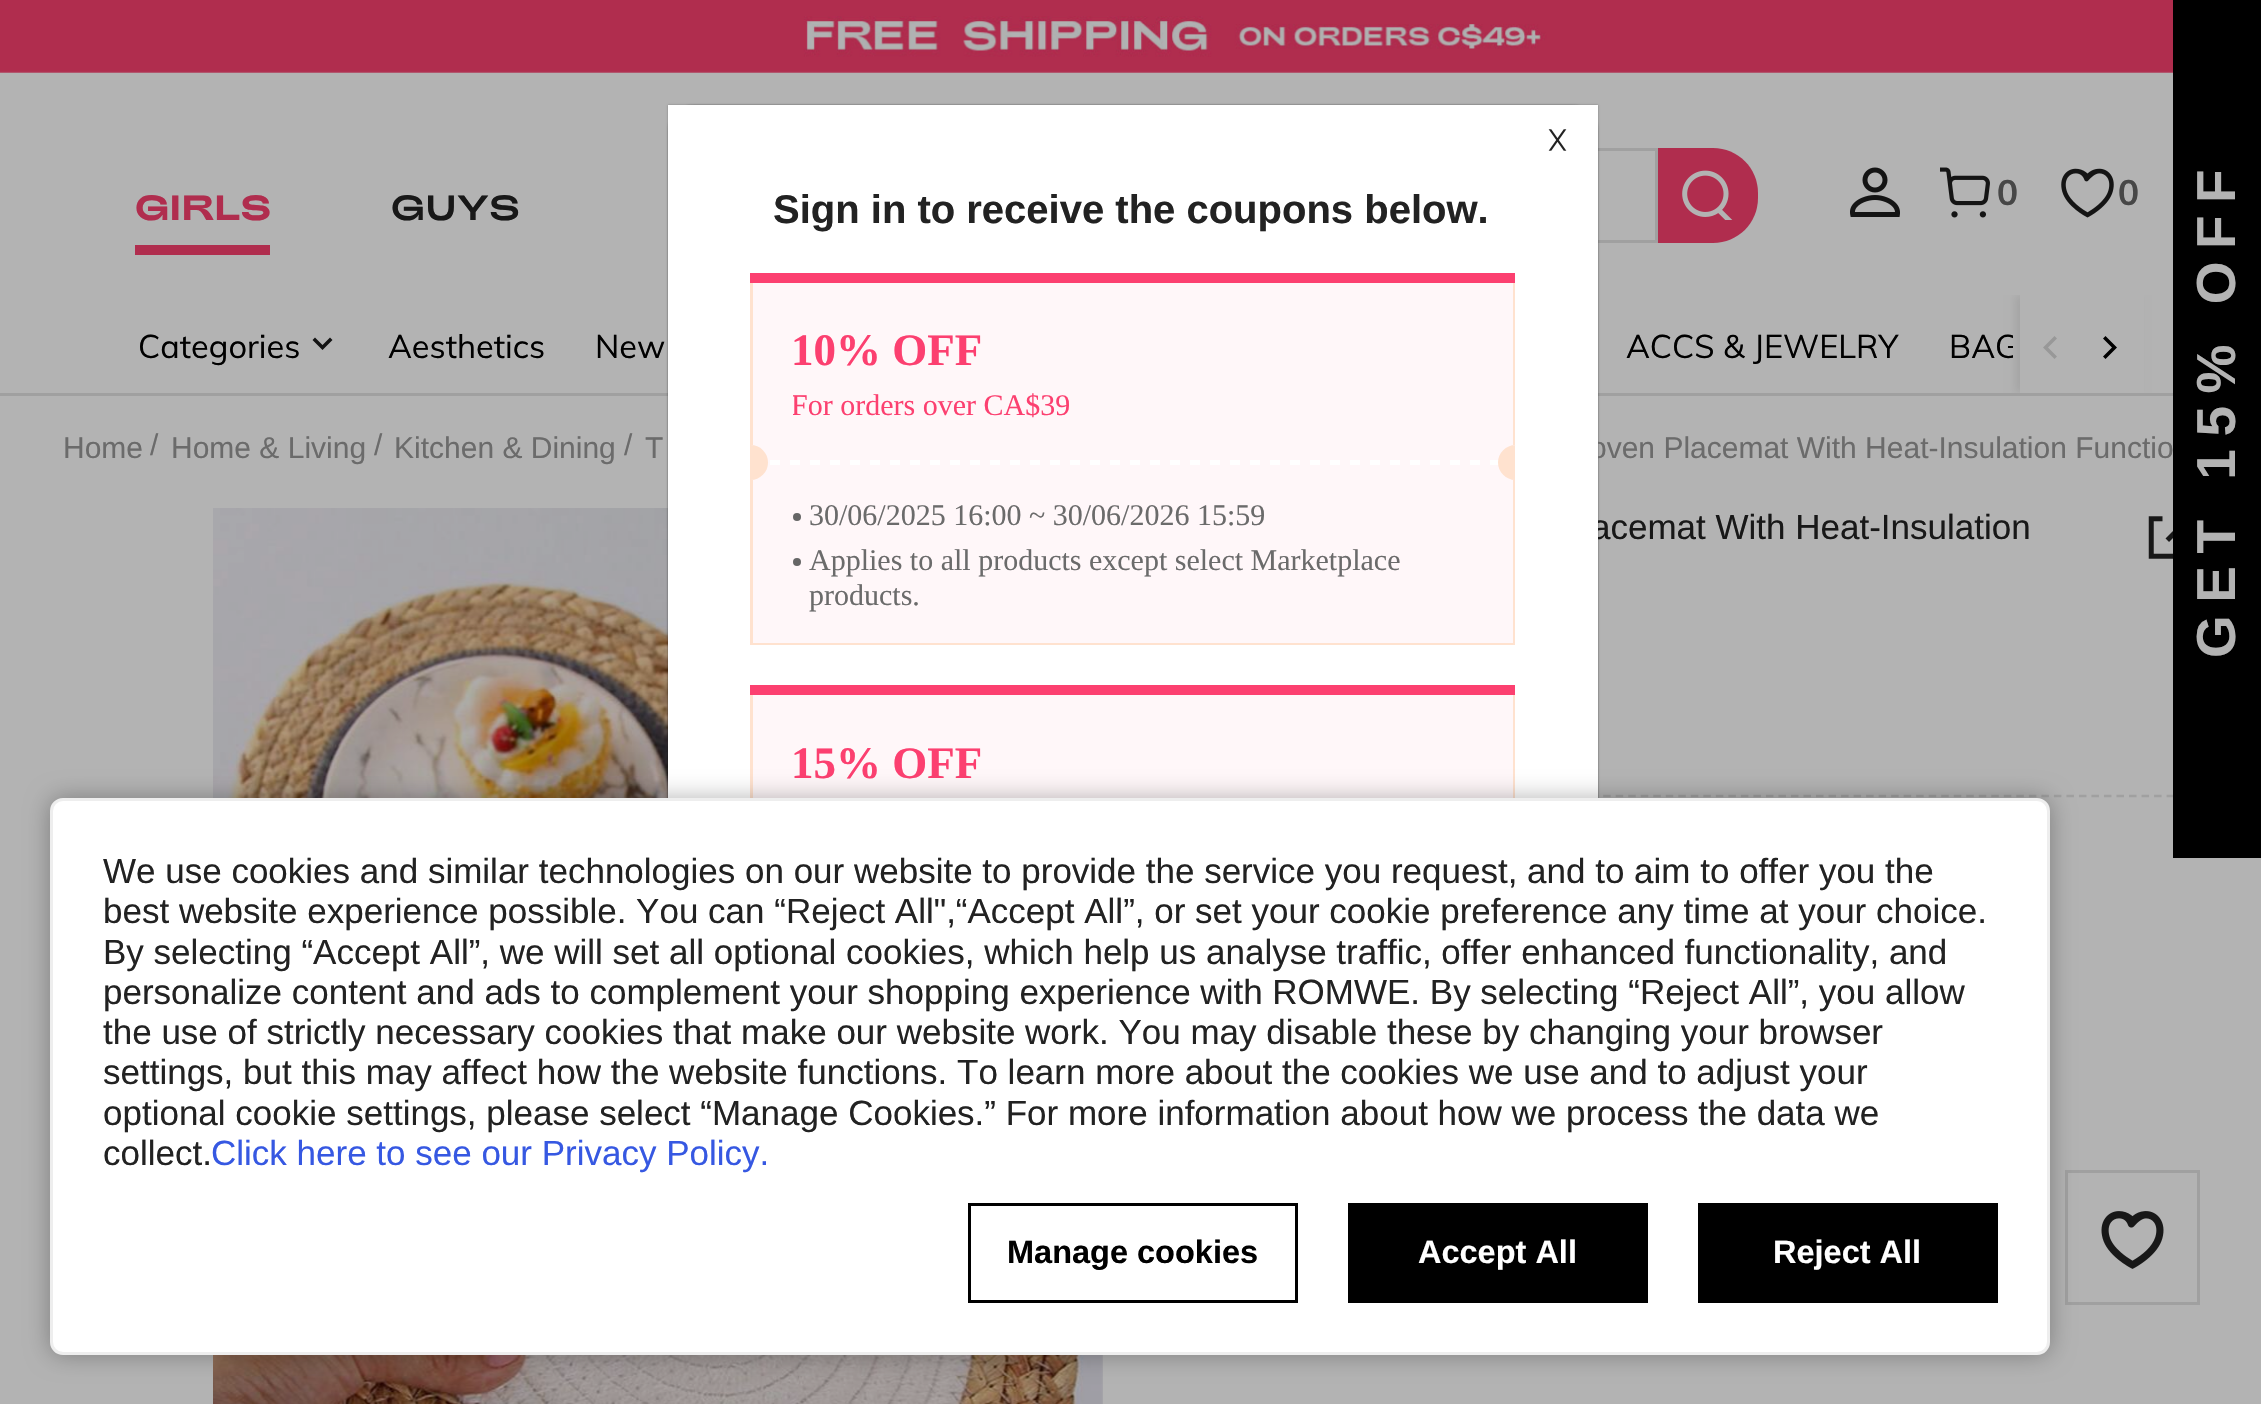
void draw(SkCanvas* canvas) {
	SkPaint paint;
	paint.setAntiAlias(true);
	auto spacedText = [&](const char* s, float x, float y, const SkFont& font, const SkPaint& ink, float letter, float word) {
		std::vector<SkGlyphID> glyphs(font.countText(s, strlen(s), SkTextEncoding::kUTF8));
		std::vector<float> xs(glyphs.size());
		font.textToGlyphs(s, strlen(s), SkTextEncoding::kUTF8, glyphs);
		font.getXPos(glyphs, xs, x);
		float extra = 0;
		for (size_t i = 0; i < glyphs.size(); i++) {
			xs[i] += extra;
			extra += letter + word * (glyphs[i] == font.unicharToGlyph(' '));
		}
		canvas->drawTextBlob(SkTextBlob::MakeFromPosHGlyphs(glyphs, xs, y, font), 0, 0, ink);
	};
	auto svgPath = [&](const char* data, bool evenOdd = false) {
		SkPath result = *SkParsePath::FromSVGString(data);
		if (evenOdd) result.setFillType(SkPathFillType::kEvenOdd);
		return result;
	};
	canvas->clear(0xffb3b3b3);
	paint.setColor(0xffadadad);
	canvas->drawRect(SkRect::MakeXYWH(1101, 1355, 2, 49), paint);
	canvas->drawImageRect(SkImages::DeferredFromEncodedData(SkData::MakeFromFileName("img1.png")), SkRect::MakeXYWH(0, 0, 2173, 73), SkSamplingOptions());
	SkFont f1(fontMgr->matchFamilyStyle("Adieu", SkFontStyle::Bold()), 35);
	f1.setSubpixel(true);
	paint.setColor(0xffb02d4e);
	canvas->drawString("GIRLS", 135, 220, f1, paint);
	canvas->drawRect(SkRect::MakeXYWH(135, 245, 135, 10), paint);
	SkFont f2(fontMgr->matchFamilyStyle("Adieu", SkFontStyle::Normal()), 35);
	f2.setSubpixel(true);
	paint.setColor(0xff181818);
	canvas->drawString("GUYS", 391, 220, f2, paint);
	paint.setStroke(true);
	paint.setStrokeWidth(3);
	paint.setColor(0xffa0a0a0);
	canvas->drawRect(SkRect::MakeXYWH(1351.5, 149.5, 305, 92), paint);
	paint.setStroke(false);
	paint.setColor(0xffb02d4e);
	canvas->drawPath(svgPath("M1658 148H1713C1738 148 1758 168 1758 193V198C1758 223 1738 243 1713 243H1658Z"), paint);
	canvas->drawImageRect(SkImages::DeferredFromEncodedData(SkData::MakeFromFileName("img2.png")), SkRect::MakeXYWH(1682, 170, 51, 50), SkSamplingOptions());
	canvas->drawImageRect(SkImages::DeferredFromEncodedData(SkData::MakeFromFileName("img3.png")), SkRect::MakeXYWH(1850, 167, 50, 50), SkSamplingOptions());
	canvas->drawImageRect(SkImages::DeferredFromEncodedData(SkData::MakeFromFileName("img4.png")), SkRect::MakeXYWH(1940, 167, 50, 51), SkSamplingOptions());
	SkFont f3(fontMgr->matchFamilyStyle("Muli", SkFontStyle::Bold()), 35);
	f3.setSubpixel(true);
	paint.setColor(0xff474747);
	canvas->drawString("0", 1997, 205, f3, paint);
	canvas->drawImageRect(SkImages::DeferredFromEncodedData(SkData::MakeFromFileName("img5.png")), SkRect::MakeXYWH(2061, 168, 53, 50), SkSamplingOptions());
	canvas->drawString("0", 2118, 205, f3, paint);
	paint.setColor(0xffa0a0a0);
	canvas->drawRect(SkRect::MakeXYWH(0, 393, 2173, 3), paint);
	SkFont f4(fontMgr->matchFamilyStyle("Muli", SkFontStyle::Normal()), 32.5);
	f4.setSubpixel(true);
	paint.setColor(0xff000000);
	canvas->drawString("Categories", 138, 358, f4, paint);
	paint.setColor(0xff141414);
	canvas->drawPath(svgPath("M330 337.5L332.5 340L322.5 350L312.5 340L315 337.5L322.5 345Z", true), paint);
	paint.setColor(0xff000000);
	canvas->drawString("Aesthetics", 388, 358, f4, paint);
	canvas->drawString("New", 595, 358, f4, paint);
	canvas->drawString("ACCS & JEWELRY", 1626, 358, f4, paint);
	canvas->save();
	canvas->clipRect(SkRect::MakeXYWH(363, 295, 1650, 98));
	canvas->drawString("BAG", 1949, 358, f4, paint);
	canvas->restore();
	canvas->save();
	canvas->clipRect(SkRect::MakeXYWH(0, 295, 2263, 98));
	paint.setColor(0x14000000);
	paint.setMaskFilter(SkMaskFilter::MakeBlur(kNormal_SkBlurStyle, 4));
	canvas->drawRect(SkRect::MakeXYWH(2015, 295, 125, 98), paint);
	paint.setMaskFilter(nullptr);
	canvas->restore();
	paint.setColor(0xffb3b3b3);
	canvas->drawRect(SkRect::MakeXYWH(2020, 295, 124, 98), paint);
	paint.setColor(0xff989898);
	canvas->drawPath(svgPath("M2057 356.5L2048 347.5L2057 338.5L2054.5 336L2043 347.5L2054.5 359Z", true), paint);
	paint.setColor(0xff000000);
	canvas->drawPath(svgPath("M2103 356.5L2112 347.5L2103 338.5L2105.5 336L2117 347.5L2105.5 359Z", true), paint);
	canvas->drawImageRect(SkImages::DeferredFromEncodedData(SkData::MakeFromFileName("img8.png")), SkRect::MakeXYWH(213, 508, 890, 896), SkSamplingOptions());
	paint.setStroke(true);
	paint.setStrokeWidth(2.5);
	paint.setColor(0xffa0a0a0);
	paint.setPathEffect(SkDashPathEffect::Make({{7.5f, 5.02f}}, 0));
	canvas->drawPath(svgPath("M1177.5 796H2200"), paint);
	paint.setPathEffect(nullptr);
	paint.setStroke(false);
	paint.setColor(0x4d000000);
	paint.setMaskFilter(SkMaskFilter::MakeBlur(kNormal_SkBlurStyle, 1));
	canvas->drawRoundRect(SkRect::MakeXYWH(668, 105, 930, 1195), 25, 25, paint);
	paint.setMaskFilter(nullptr);
	paint.setMaskFilter(SkMaskFilter::MakeBlur(kNormal_SkBlurStyle, 1));
	canvas->drawRect(SkRect::MakeXYWH(668, 105, 930, 1195), paint);
	paint.setMaskFilter(nullptr);
	SkFont f5(fontMgr->matchFamilyStyle("Liberation Sans", SkFontStyle::Normal()), 30);
	f5.setSubpixel(true);
	paint.setColor(0xff6b6b6b);
	canvas->drawString("oven Placemat With Heat-Insulation Functio", 1590, 458, f5, paint);
	SkFont f6(fontMgr->matchFamilyStyle("Liberation Sans", SkFontStyle::Normal()), 35);
	f6.setSubpixel(true);
	paint.setColor(0xff181818);
	canvas->drawString("acemat With Heat-Insulation", 1591, 539, f6, paint);
	paint.setColor(0xffffffff);
	canvas->drawRect(SkRect::MakeXYWH(668, 105, 930, 693), paint);
	canvas->drawImageRect(SkImages::DeferredFromEncodedData(SkData::MakeFromFileName("img6.png")), SkRect::MakeXYWH(1548, 129, 19, 22), SkSamplingOptions());
	SkFont f7(fontMgr->matchFamilyStyle("Liberation Sans", SkFontStyle::Bold()), 40);
	f7.setSubpixel(true);
	paint.setColor(0xff222222);
	canvas->drawString("Sign in to receive the coupons below.", 773, 223, f7, paint);
	paint.setColor(0xfffff7f9);
	canvas->drawRect(SkRect::MakeXYWH(751, 283, 764, 360), paint);
	paint.setColor(0xfffc4070);
	canvas->drawRect(SkRect::MakeXYWH(750, 273, 765, 10), paint);
	paint.setColor(0xffffe2cf);
	canvas->drawRect(SkRect::MakeXYWH(1513, 283, 2, 162), paint);
	canvas->drawRect(SkRect::MakeXYWH(750, 283, 3, 162), paint);
	SkFont f8(fontMgr->matchFamilyStyle("Liberation Serif", SkFontStyle::Bold()), 45);
	f8.setSubpixel(true);
	paint.setColor(0xfffc4070);
	canvas->drawString("10% OFF", 791, 365, f8, paint);
	canvas->save();
	canvas->clipRect(SkRect::MakeXYWH(793, 323, 650, 102));
	SkFont f9(fontMgr->matchFamilyStyle("Liberation Serif", SkFontStyle::Normal()), 30);
	f9.setSubpixel(true);
	canvas->drawString("For orders over CA$39", 791, 415, f9, paint);
	canvas->restore();
	canvas->save();
	canvas->clipRect(SkRect::MakeXYWH(750, 273, 765, 372));
	paint.setColor(0xffffe2cf);
	canvas->drawCircle(750.5, 462.5, 17.5, paint);
	canvas->restore();
	canvas->drawImageRect(SkImages::DeferredFromEncodedData(SkData::MakeFromFileName("img7.png")), SkRect::MakeXYWH(770, 460, 729, 5), SkSamplingOptions());
	canvas->drawPath(svgPath("M1515.5 445H1515V480H1515.5C1506 480 1498 472 1498 462.5C1498 453 1506 445 1515.5 445Z"), paint);
	canvas->drawRect(SkRect::MakeXYWH(1513, 480, 2, 165), paint);
	canvas->drawRect(SkRect::MakeXYWH(750, 643, 765, 2), paint);
	canvas->drawRect(SkRect::MakeXYWH(750, 480, 3, 165), paint);
	paint.setColor(0xff666666);
	canvas->drawCircle(797, 517, 4, paint);
	paint.setColor(0xff6b6b6b);
	canvas->drawString("30/06/2025 16:00 ~ 30/06/2026 15:59", 809, 525, f9, paint);
	paint.setColor(0xff666666);
	canvas->drawCircle(797, 562, 4, paint);
	paint.setColor(0xff6b6b6b);
	canvas->drawString("Applies to all products except select Marketplace", 809, 570, f9, paint);
	canvas->drawString("products.", 809, 605, f9, paint);
	paint.setColor(0xfffff7f9);
	canvas->drawRect(SkRect::MakeXYWH(753, 695, 760, 103), paint);
	paint.setColor(0xfffc4070);
	canvas->drawRect(SkRect::MakeXYWH(750, 685, 765, 10), paint);
	paint.setColor(0xffffe2cf);
	canvas->drawRect(SkRect::MakeXYWH(1513, 695, 2, 103), paint);
	canvas->drawRect(SkRect::MakeXYWH(750, 695, 3, 103), paint);
	paint.setColor(0xfffc4070);
	canvas->drawString("15% OFF", 791, 778, f8, paint);
	paint.setColor(0xff6b6b6b);
	canvas->drawString("Home", 63, 458, f5, paint);
	canvas->drawString("/", 150, 455, f5, paint);
	canvas->drawString("Home & Living", 171, 458, f5, paint);
	canvas->drawString("/", 374, 455, f5, paint);
	canvas->drawString("Kitchen & Dining", 394, 458, f5, paint);
	canvas->drawString("/", 624, 455, f5, paint);
	canvas->drawString("T", 645, 458, f5, paint);
	canvas->drawImageRect(SkImages::DeferredFromEncodedData(SkData::MakeFromFileName("img9.png")), SkRect::MakeXYWH(2148, 516, 25, 43), SkSamplingOptions());
	paint.setStroke(true);
	paint.setStrokeWidth(3);
	paint.setColor(0xffa0a0a0);
	canvas->drawRect(SkRect::MakeXYWH(2066.5, 1171.5, 132, 132), paint);
	canvas->drawImageRect(SkImages::DeferredFromEncodedData(SkData::MakeFromFileName("img10.png")), SkRect::MakeXYWH(2101, 1211, 63, 58), SkSamplingOptions());
	paint.setStroke(false);
	paint.setColor(0xff000000);
	canvas->drawRect(SkRect::MakeXYWH(2173, 0, 88, 858), paint);
	SkFont f10(fontMgr->matchFamilyStyle("Liberation Sans", SkFontStyle::Bold()), 55);
	f10.setSubpixel(true);
	paint.setColor(0xffb3b3b3);
	canvas->save();
	canvas->rotate(-90, 2235, 658);
	spacedText("GET 15% OFF", 2235, 658, f10, paint, 12.5, 0);
	canvas->restore();
	paint.setColor(0x4d000000);
	paint.setMaskFilter(SkMaskFilter::MakeBlur(kNormal_SkBlurStyle, 12.5));
	canvas->drawRoundRect(SkRect::MakeXYWH(50, 798, 2000, 557), 13, 13, paint);
	paint.setMaskFilter(nullptr);
	paint.setColor(0xffffffff);
	canvas->drawRoundRect(SkRect::MakeXYWH(51.5, 799.5, 1997, 554), 11.5, 11.5, paint);
	paint.setStroke(true);
	paint.setColor(0xffeeeeee);
	canvas->drawRoundRect(SkRect::MakeXYWH(51.5, 799.5, 1997, 554), 11.5, 11.5, paint);
	paint.setStroke(false);
	paint.setColor(0xff222222);
	canvas->drawString("We use cookies and similar technologies on our website to provide the service you request, and to aim to offer you the", 103, 883, f6, paint);
	canvas->drawString("best website experience possible. You can “Reject All\",“Accept All”, or set your cookie preference any time at your choice.", 103, 923, f6, paint);
	canvas->drawString("By selecting “Accept All”, we will set all optional cookies, which help us analyse traffic, offer enhanced functionality, and", 103, 964, f6, paint);
	canvas->drawString("personalize content and ads to complement your shopping experience with ROMWE. By selecting “Reject All”, you allow", 103, 1004, f6, paint);
	canvas->drawString("the use of strictly necessary cookies that make our website work. You may disable these by changing your browser", 103, 1044, f6, paint);
	canvas->drawString("settings, but this may affect how the website functions. To learn more about the cookies we use and to adjust your", 103, 1084, f6, paint);
	canvas->drawString("optional cookie settings, please select “Manage Cookies.” For more information about how we process the data we", 103, 1125, f6, paint);
	canvas->drawString("collect.", 103, 1165, f6, paint);
	paint.setColor(0xff3658e2);
	canvas->drawString("Click here to see our Privacy Policy.", 211, 1165, f6, paint);
	paint.setStroke(true);
	paint.setColor(0xff000000);
	canvas->drawRect(SkRect::MakeXYWH(969.5, 1204.5, 327, 97), paint);
	SkFont f11(fontMgr->matchFamilyStyle("Liberation Sans", SkFontStyle::Bold()), 32.5);
	f11.setSubpixel(true);
	paint.setStroke(false);
	canvas->drawString("Manage cookies", 1007, 1263, f11, paint);
	canvas->drawRect(SkRect::MakeXYWH(1348, 1203, 300, 100), paint);
	paint.setColor(0xffffffff);
	canvas->drawString("Accept All", 1418, 1263, f11, paint);
	paint.setColor(0xff000000);
	canvas->drawRect(SkRect::MakeXYWH(1698, 1203, 300, 100), paint);
	paint.setColor(0xffffffff);
	canvas->drawString("Reject All", 1773, 1263, f11, paint);
}
